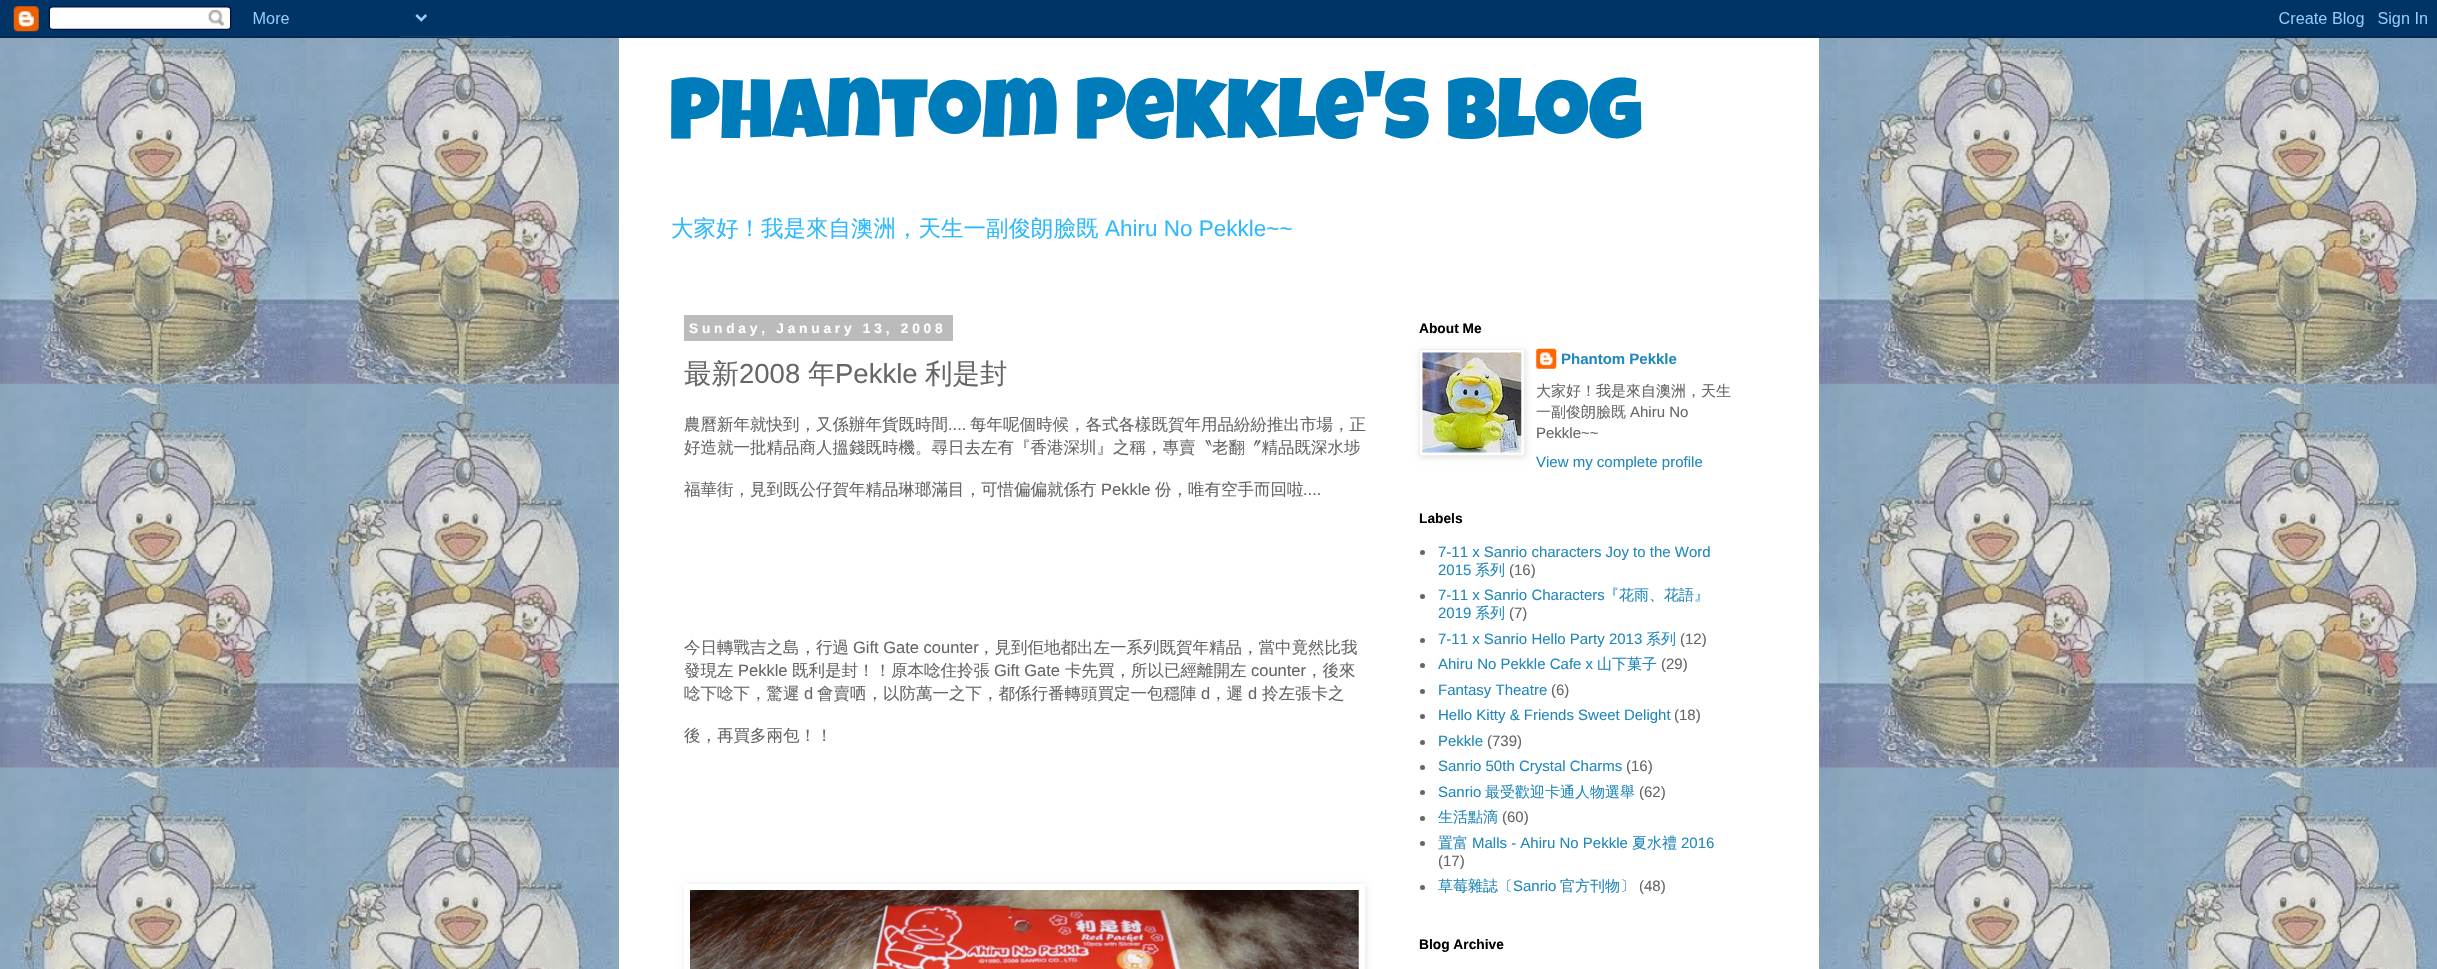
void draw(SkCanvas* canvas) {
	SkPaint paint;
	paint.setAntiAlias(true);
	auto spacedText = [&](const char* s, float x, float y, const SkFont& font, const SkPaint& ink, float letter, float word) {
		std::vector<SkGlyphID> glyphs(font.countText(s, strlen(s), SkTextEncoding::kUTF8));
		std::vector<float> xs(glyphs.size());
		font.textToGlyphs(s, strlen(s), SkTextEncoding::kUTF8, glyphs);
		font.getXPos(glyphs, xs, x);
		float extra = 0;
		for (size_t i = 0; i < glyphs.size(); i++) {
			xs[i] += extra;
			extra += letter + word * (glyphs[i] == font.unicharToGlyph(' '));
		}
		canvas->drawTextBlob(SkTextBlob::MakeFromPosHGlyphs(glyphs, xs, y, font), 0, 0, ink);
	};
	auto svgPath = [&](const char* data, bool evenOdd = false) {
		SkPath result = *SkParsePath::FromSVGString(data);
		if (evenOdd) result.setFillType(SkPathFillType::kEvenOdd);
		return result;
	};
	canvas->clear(0xffffffff);
	canvas->drawImageRect(SkImages::DeferredFromEncodedData(SkData::MakeFromFileName("img1.png")), SkRect::MakeXYWH(0, 36, 2437, 933), SkSamplingOptions());
	canvas->drawImageRect(SkImages::DeferredFromEncodedData(SkData::MakeFromFileName("img2.png")), SkRect::MakeXYWH(0, 0, 2437, 38), SkSamplingOptions());
	paint.setColor(0xffffffff);
	canvas->drawRect(SkRect::MakeXYWH(619, 38, 1200, 931), paint);
	SkFont f1(fontMgr->matchFamilyStyle("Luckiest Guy", SkFontStyle::Normal()), 85);
	f1.setSubpixel(true);
	paint.setColor(0xff007cbb);
	canvas->drawString("Phantom Pekkle's Blog", 669, 138, f1, paint);
	SkFont f2(fontMgr->matchFamilyStyle("WenQuanYi Zen Hei", SkFontStyle(500, SkFontStyle::kNormal_Width, SkFontStyle::kUpright_Slant)), 22.5);
	f2.setSubpixel(true);
	paint.setColor(0xff2eb9ff);
	canvas->drawString("大家好！我是來自澳洲，天生一副俊朗臉既", 671, 236, f2, paint);
	SkFont f3(fontMgr->matchFamilyStyle("Liberation Sans", SkFontStyle::Normal()), 22.5);
	f3.setSubpixel(true);
	canvas->drawString("Ahiru No Pekkle~~", 1105, 236, f3, paint);
	paint.setColor(0xffbbbbbb);
	canvas->drawRect(SkRect::MakeXYWH(684, 315, 269, 26), paint);
	SkFont f4(fontMgr->matchFamilyStyle("Liberation Sans", SkFontStyle::Bold()), 13.75);
	f4.setSubpixel(true);
	paint.setColor(0xffffffff);
	spacedText("Sunday, January 13, 2008", 689, 333, f4, paint, 3.75, 0);
	SkFont f5(fontMgr->matchFamilyStyle("WenQuanYi Zen Hei", SkFontStyle(500, SkFontStyle::kNormal_Width, SkFontStyle::kUpright_Slant)), 27.5);
	f5.setSubpixel(true);
	paint.setColor(0xff666666);
	canvas->drawString("最新", 684, 383, f5, paint);
	SkFont f6(fontMgr->matchFamilyStyle("Liberation Sans", SkFontStyle::Normal()), 27.5);
	f6.setSubpixel(true);
	canvas->drawString("2008", 739, 383, f6, paint);
	canvas->drawString("年", 808, 383, f5, paint);
	canvas->drawString("Pekkle", 835, 383, f6, paint);
	canvas->drawString("利是封", 925, 383, f5, paint);
	SkFont f7(fontMgr->matchFamilyStyle("WenQuanYi Zen Hei", SkFontStyle(500, SkFontStyle::kNormal_Width, SkFontStyle::kUpright_Slant)), 16.5);
	f7.setSubpixel(true);
	canvas->drawString("農曆新年就快到，又係辦年貨既時間", 684, 430, f7, paint);
	SkFont f8(fontMgr->matchFamilyStyle("Liberation Sans", SkFontStyle::Normal()), 16.5);
	f8.setSubpixel(true);
	canvas->drawString("....", 948, 430, f8, paint);
	canvas->drawString("每年呢個時候，各式各樣既賀年用品紛紛推出市場，正", 970, 430, f7, paint);
	canvas->drawString("好造就一批精品商人搵錢既時機。尋日去左有『香港深圳』之稱，專賣〝老翻〞精品既深水埗", 684, 453, f7, paint);
	canvas->drawString("福華街，見到既公仔賀年精品琳瑯滿目，可惜偏偏就係冇", 684, 495, f7, paint);
	canvas->drawString("Pekkle", 1101, 495, f8, paint);
	canvas->drawString("份，唯有空手而回啦", 1155, 495, f7, paint);
	canvas->drawString("....", 1303, 495, f8, paint);
	canvas->drawString("今日轉戰吉之島，行過", 684, 653, f7, paint);
	canvas->drawString("Gift Gate counter", 853, 653, f8, paint);
	canvas->drawString("，見到佢地都出左一系列既賀年精品，當中竟然比我", 978, 653, f7, paint);
	canvas->drawString("發現左", 684, 676, f7, paint);
	canvas->drawString("Pekkle", 738, 676, f8, paint);
	canvas->drawString("既利是封！！原本唸住拎張", 792, 676, f7, paint);
	canvas->drawString("Gift Gate", 994, 676, f8, paint);
	canvas->drawString("卡先買，所以已經離開左", 1065, 676, f7, paint);
	canvas->drawString("counter", 1251, 676, f8, paint);
	canvas->drawString("，後來", 1306, 676, f7, paint);
	canvas->drawString("唸下唸下，驚遲", 684, 699, f7, paint);
	canvas->drawString("d", 804, 699, f8, paint);
	canvas->drawString("會賣哂，以防萬一之下，都係行番轉頭買定一包穩陣", 817, 699, f7, paint);
	canvas->drawString("d", 1201, 699, f8, paint);
	canvas->drawString("，遲", 1210, 699, f7, paint);
	canvas->drawString("d", 1248, 699, f8, paint);
	canvas->drawString("拎左張卡之", 1262, 699, f7, paint);
	canvas->drawString("後，再買多兩包！！", 684, 741, f7, paint);
	canvas->save();
	canvas->clipPath(svgPath("M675 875H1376V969H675ZM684 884H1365V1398H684Z", true), true);
	paint.setColor(0x1a000000);
	paint.setMaskFilter(SkMaskFilter::MakeBlur(kNormal_SkBlurStyle, 3));
	canvas->drawRect(SkRect::MakeXYWH(685, 885, 681, 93), paint);
	paint.setMaskFilter(nullptr);
	canvas->restore();
	canvas->drawImageRect(SkImages::DeferredFromEncodedData(SkData::MakeFromFileName("img3.png")), SkRect::MakeXYWH(690, 890, 669, 79), SkSamplingOptions());
	paint.setColor(0xff000000);
	canvas->drawString("About Me", 1419, 333, f4, paint);
	canvas->save();
	canvas->clipPath(svgPath("M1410 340H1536V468H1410ZM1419 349H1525V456H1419Z", true), true);
	paint.setColor(0x1a000000);
	paint.setMaskFilter(SkMaskFilter::MakeBlur(kNormal_SkBlurStyle, 3));
	canvas->drawRect(SkRect::MakeXYWH(1420, 350, 106, 108), paint);
	paint.setMaskFilter(nullptr);
	canvas->restore();
	paint.setStroke(true);
	paint.setStrokeWidth(1);
	paint.setColor(0xffeeeeee);
	canvas->drawRect(SkRect::MakeXYWH(1419.5, 349.5, 105, 106), paint);
	canvas->drawImageRect(SkImages::DeferredFromEncodedData(SkData::MakeFromFileName("img4.png")), SkRect::MakeXYWH(1422, 352, 100, 101), SkSamplingOptions());
	canvas->drawImageRect(SkImages::DeferredFromEncodedData(SkData::MakeFromFileName("img5.png")), SkRect::MakeXYWH(1536, 348, 21, 21), SkSamplingOptions());
	SkFont f9(fontMgr->matchFamilyStyle("Liberation Sans", SkFontStyle::Bold()), 15);
	f9.setSubpixel(true);
	paint.setStroke(false);
	paint.setColor(0xff2288bb);
	canvas->drawString("Phantom Pekkle", 1561, 364, f9, paint);
	SkFont f10(fontMgr->matchFamilyStyle("WenQuanYi Zen Hei", SkFontStyle(500, SkFontStyle::kNormal_Width, SkFontStyle::kUpright_Slant)), 15);
	f10.setSubpixel(true);
	paint.setColor(0xff666666);
	canvas->drawString("大家好！我是來自澳洲，天生", 1536, 396, f10, paint);
	canvas->drawString("一副俊朗臉既", 1536, 417, f10, paint);
	SkFont f11(fontMgr->matchFamilyStyle("Liberation Sans", SkFontStyle::Normal()), 15);
	f11.setSubpixel(true);
	canvas->drawString("Ahiru No", 1630, 417, f11, paint);
	canvas->drawString("Pekkle~~", 1536, 438, f11, paint);
	paint.setColor(0xff2288bb);
	canvas->drawString("View my complete profile", 1536, 467, f11, paint);
	paint.setColor(0xff000000);
	canvas->drawString("Labels", 1419, 523, f4, paint);
	paint.setColor(0xff666666);
	canvas->drawCircle(1422.5, 552.5, 2.5, paint);
	paint.setColor(0xff2288bb);
	canvas->drawString("7-11 x Sanrio characters Joy to the Word", 1438, 557, f11, paint);
	canvas->drawString("2015", 1438, 575, f11, paint);
	canvas->drawString("系列", 1475, 575, f10, paint);
	paint.setColor(0xff666666);
	canvas->drawString("(16)", 1509, 575, f11, paint);
	canvas->drawCircle(1422.5, 596.5, 2.5, paint);
	paint.setColor(0xff2288bb);
	canvas->drawString("7-11 x Sanrio Characters", 1438, 600, f11, paint);
	canvas->drawString("『花雨、花語』", 1604, 600, f10, paint);
	canvas->drawString("2019", 1438, 618, f11, paint);
	canvas->drawString("系列", 1475, 618, f10, paint);
	paint.setColor(0xff666666);
	canvas->drawString("(7)", 1509, 618, f11, paint);
	canvas->drawCircle(1422.5, 640.5, 2.5, paint);
	paint.setColor(0xff2288bb);
	canvas->drawString("7-11 x Sanrio Hello Party 2013", 1438, 644, f11, paint);
	canvas->drawString("系列", 1646, 644, f10, paint);
	paint.setColor(0xff666666);
	canvas->drawString("(12)", 1680, 644, f11, paint);
	canvas->drawCircle(1422.5, 665.5, 2.5, paint);
	paint.setColor(0xff2288bb);
	canvas->drawString("Ahiru No Pekkle Cafe x", 1438, 669, f11, paint);
	canvas->drawString("山下菓子", 1597, 669, f10, paint);
	paint.setColor(0xff666666);
	canvas->drawString("(29)", 1661, 669, f11, paint);
	canvas->drawCircle(1422.5, 691.5, 2.5, paint);
	paint.setColor(0xff2288bb);
	canvas->drawString("Fantasy Theatre", 1438, 695, f11, paint);
	paint.setColor(0xff666666);
	canvas->drawString("(6)", 1551, 695, f11, paint);
	canvas->drawCircle(1422.5, 716.5, 2.5, paint);
	paint.setColor(0xff2288bb);
	canvas->drawString("Hello Kitty & Friends Sweet Delight", 1438, 720, f11, paint);
	paint.setColor(0xff666666);
	canvas->drawString("(18)", 1674, 720, f11, paint);
	canvas->drawCircle(1422.5, 742.5, 2.5, paint);
	paint.setColor(0xff2288bb);
	canvas->drawString("Pekkle", 1438, 746, f11, paint);
	paint.setColor(0xff666666);
	canvas->drawString("(739)", 1487, 746, f11, paint);
	canvas->drawCircle(1422.5, 767.5, 2.5, paint);
	paint.setColor(0xff2288bb);
	canvas->drawString("Sanrio 50th Crystal Charms", 1438, 771, f11, paint);
	paint.setColor(0xff666666);
	canvas->drawString("(16)", 1626, 771, f11, paint);
	canvas->drawCircle(1422.5, 792.5, 2.5, paint);
	paint.setColor(0xff2288bb);
	canvas->drawString("Sanrio", 1438, 797, f11, paint);
	canvas->drawString("最受歡迎卡通人物選舉", 1485, 797, f10, paint);
	paint.setColor(0xff666666);
	canvas->drawString("(62)", 1639, 797, f11, paint);
	canvas->drawCircle(1422.5, 818.5, 2.5, paint);
	paint.setColor(0xff2288bb);
	canvas->drawString("生活點滴", 1438, 822, f10, paint);
	paint.setColor(0xff666666);
	canvas->drawString("(60)", 1502, 822, f11, paint);
	canvas->drawCircle(1422.5, 843.5, 2.5, paint);
	paint.setColor(0xff2288bb);
	canvas->drawString("置富", 1438, 848, f10, paint);
	canvas->drawString("Malls - Ahiru No Pekkle", 1472, 848, f11, paint);
	canvas->drawString("夏水禮", 1632, 848, f10, paint);
	canvas->drawString("2016", 1681, 848, f11, paint);
	paint.setColor(0xff666666);
	canvas->drawString("(17)", 1438, 866, f11, paint);
	canvas->drawCircle(1422.5, 887.5, 2.5, paint);
	paint.setColor(0xff2288bb);
	canvas->drawString("草莓雜誌〔", 1438, 891, f10, paint);
	canvas->drawString("Sanrio", 1513, 891, f11, paint);
	canvas->drawString("官方刊物〕", 1560, 891, f10, paint);
	paint.setColor(0xff666666);
	canvas->drawString("(48)", 1639, 891, f11, paint);
	paint.setColor(0xff000000);
	canvas->drawString("Blog Archive", 1419, 949, f4, paint);
}
